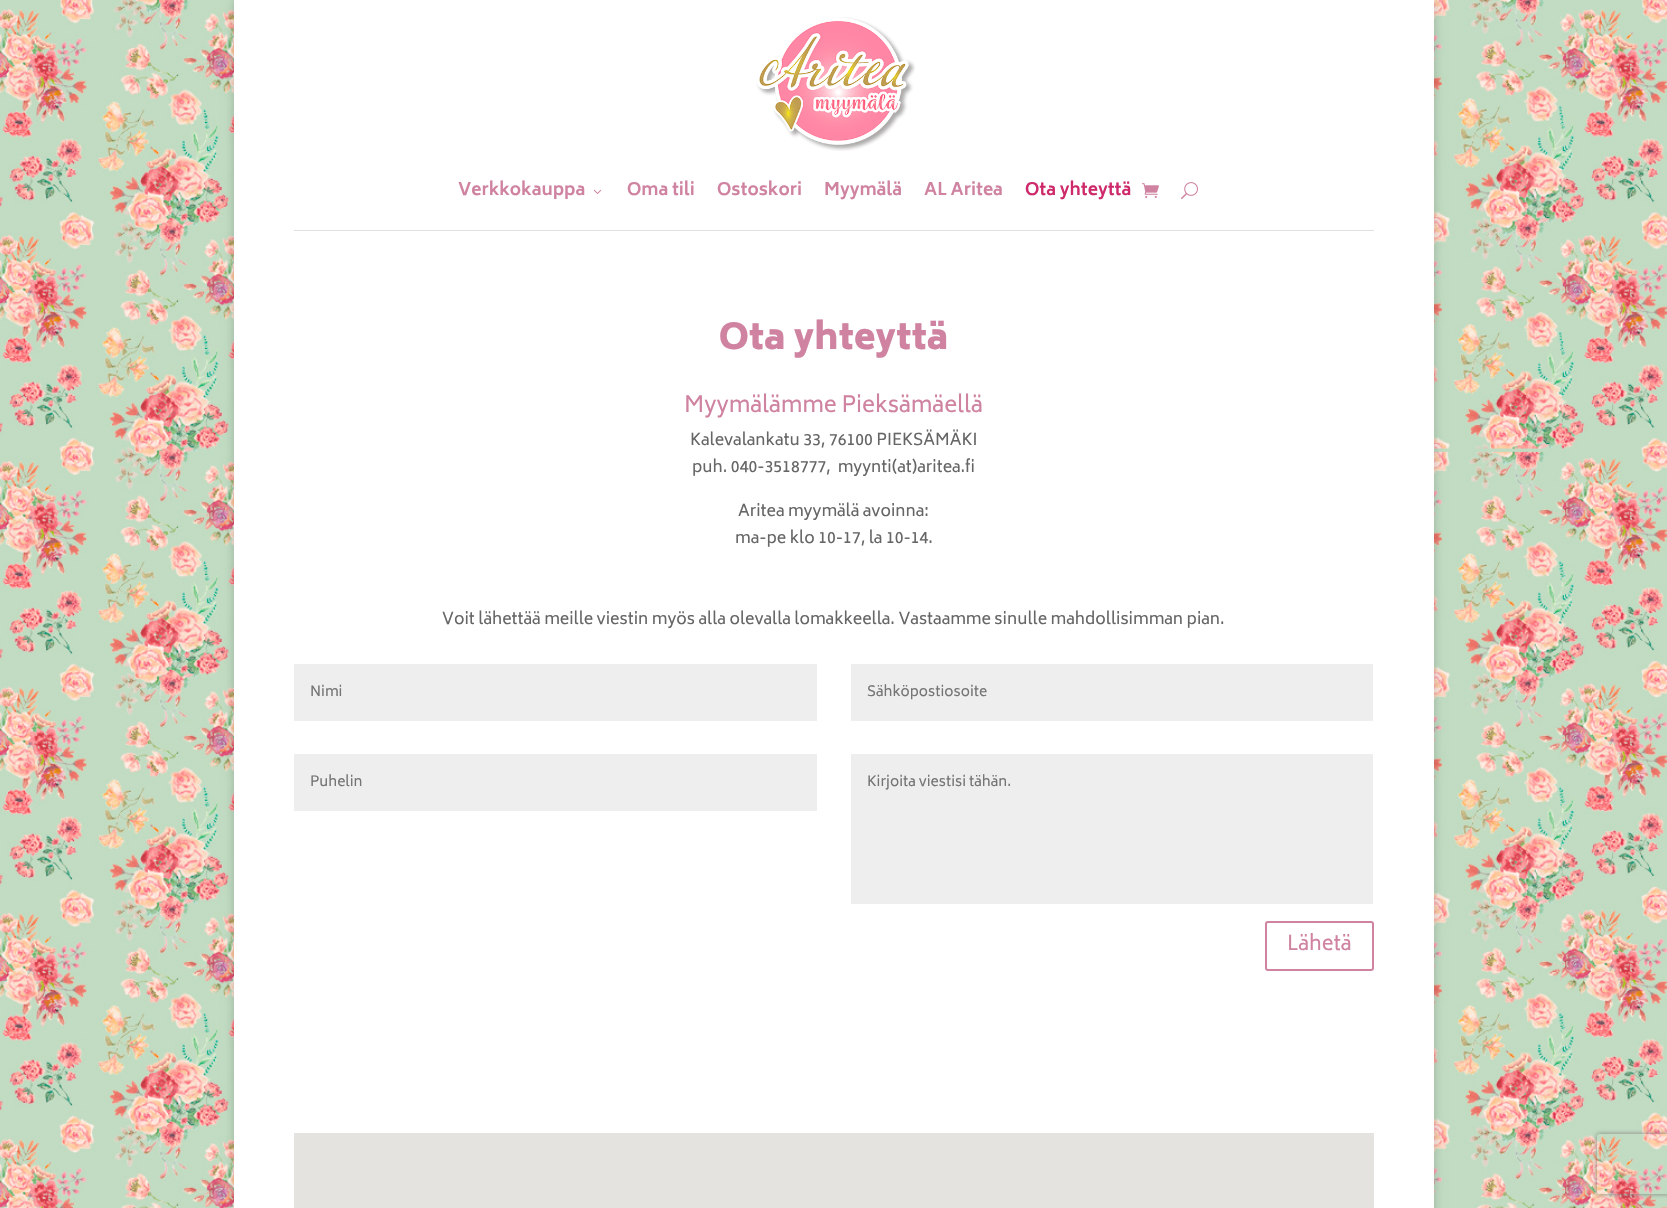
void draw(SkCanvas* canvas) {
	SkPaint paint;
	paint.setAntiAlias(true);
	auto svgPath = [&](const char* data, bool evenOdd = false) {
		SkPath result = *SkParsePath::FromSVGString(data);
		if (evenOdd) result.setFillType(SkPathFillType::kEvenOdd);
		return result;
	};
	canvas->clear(0xffffffff);
	canvas->drawImageRect(SkImages::DeferredFromEncodedData(SkData::MakeFromFileName("img1.png")), SkRect::MakeXYWH(0, 0, 1667, 1208), SkSamplingOptions());
	paint.setColor(0x33000000);
	paint.setMaskFilter(SkMaskFilter::MakeBlur(kNormal_SkBlurStyle, 5));
	canvas->drawRect(SkRect::MakeXYWH(234, 0, 1200, 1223), paint);
	paint.setMaskFilter(nullptr);
	paint.setColor(0xffffffff);
	canvas->drawRect(SkRect::MakeXYWH(234, 0, 1200, 1208), paint);
	paint.setColor(0xffe0e0e0);
	canvas->drawRect(SkRect::MakeXYWH(294, 230, 1080, 1), paint);
	canvas->drawImageRect(SkImages::DeferredFromEncodedData(SkData::MakeFromFileName("img2.png")), SkRect::MakeXYWH(756, 17, 159, 134), SkSamplingOptions());
	SkFont f1(fontMgr->matchFamilyStyle("Biryani", SkFontStyle::Bold()), 17);
	f1.setSubpixel(true);
	paint.setColor(0xffcf83a1);
	canvas->drawString("Verkkokauppa", 458, 195, f1, paint);
	canvas->drawImageRect(SkImages::DeferredFromEncodedData(SkData::MakeFromFileName("img3.png")), SkRect::MakeXYWH(593, 189, 9, 5), SkSamplingOptions());
	canvas->drawString("Oma tili", 627, 195, f1, paint);
	canvas->drawString("Ostoskori", 717, 195, f1, paint);
	canvas->drawString("Myymälä", 824, 195, f1, paint);
	canvas->drawString("AL Aritea", 924, 195, f1, paint);
	paint.setColor(0xffce296b);
	canvas->drawString("Ota yhteyttä", 1025, 195, f1, paint);
	canvas->drawImageRect(SkImages::DeferredFromEncodedData(SkData::MakeFromFileName("img4.png")), SkRect::MakeXYWH(1142, 183, 17, 15), SkSamplingOptions());
	canvas->drawImageRect(SkImages::DeferredFromEncodedData(SkData::MakeFromFileName("img5.png")), SkRect::MakeXYWH(1181, 182, 17, 18), SkSamplingOptions());
	SkFont f2(fontMgr->matchFamilyStyle("Biryani", SkFontStyle(900, SkFontStyle::kNormal_Width, SkFontStyle::kUpright_Slant)), 35);
	f2.setSubpixel(true);
	paint.setColor(0xffcf83a1);
	canvas->drawString("Ota yhteyttä", 719, 349, f2, paint);
	SkFont f3(fontMgr->matchFamilyStyle("Biryani", SkFontStyle::Normal()), 22);
	f3.setSubpixel(true);
	canvas->drawString("Myymälämme Pieksämäellä", 684, 412, f3, paint);
	SkFont f4(fontMgr->matchFamilyStyle("Biryani", SkFontStyle::Normal()), 16);
	f4.setSubpixel(true);
	paint.setColor(0xff666666);
	canvas->drawString("Kalevalankatu 33, 76100 PIEKSÄMÄKI", 690, 445, f4, paint);
	canvas->drawString("puh. 040-3518777,  myynti(at)aritea.fi", 692, 472, f4, paint);
	canvas->drawString("Aritea myymälä avoinna:", 738, 516, f4, paint);
	canvas->drawString("ma-pe klo 10-17, la 10-14.", 735, 543, f4, paint);
	canvas->drawString("Voit lähettää meille viestin myös alla olevalla lomakkeella. Vastaamme sinulle mahdollisimman pian.", 442, 624, f4, paint);
	paint.setColor(0xffeeeeee);
	canvas->drawRect(SkRect::MakeXYWH(294, 664, 523, 57), paint);
	SkFont f5(fontMgr->matchFamilyStyle("Biryani", SkFontStyle::Normal()), 14);
	f5.setSubpixel(true);
	paint.setColor(0xff757575);
	canvas->drawString("Nimi", 310, 696, f5, paint);
	paint.setColor(0xffeeeeee);
	canvas->drawRect(SkRect::MakeXYWH(851, 664, 522, 57), paint);
	paint.setColor(0xff757575);
	canvas->drawString("Sähköpostiosoite", 867, 696, f5, paint);
	paint.setColor(0xffeeeeee);
	canvas->drawRect(SkRect::MakeXYWH(294, 754, 523, 57), paint);
	paint.setColor(0xff757575);
	canvas->drawString("Puhelin", 310, 786, f5, paint);
	paint.setColor(0xffeeeeee);
	canvas->drawRect(SkRect::MakeXYWH(851, 754, 522, 150), paint);
	paint.setColor(0xff757575);
	canvas->drawString("Kirjoita viestisi tähän.", 867, 786, f5, paint);
	paint.setStroke(true);
	paint.setStrokeWidth(2);
	paint.setColor(0xffcf83a1);
	canvas->drawRoundRect(SkRect::MakeXYWH(1266, 922, 107, 48), 2, 2, paint);
	SkFont f6(fontMgr->matchFamilyStyle("Biryani", SkFontStyle::Normal()), 20);
	f6.setSubpixel(true);
	paint.setStroke(false);
	canvas->drawString("Lähetä", 1287, 950, f6, paint);
	paint.setColor(0xffe5e3df);
	canvas->drawRect(SkRect::MakeXYWH(294, 1133, 1080, 75), paint);
	canvas->save();
	canvas->clipPath(svgPath("M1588 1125H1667V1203H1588ZM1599 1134H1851C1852 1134 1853 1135 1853 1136V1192C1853 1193 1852 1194 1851 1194H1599C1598 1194 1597 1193 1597 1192V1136C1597 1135 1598 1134 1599 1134Z", true), true);
	paint.setColor(0xff808080);
	paint.setMaskFilter(SkMaskFilter::MakeBlur(kNormal_SkBlurStyle, 2.5));
	canvas->drawRoundRect(SkRect::MakeXYWH(1597, 1134, 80, 60), 2, 2, paint);
	paint.setMaskFilter(nullptr);
	canvas->restore();
}
